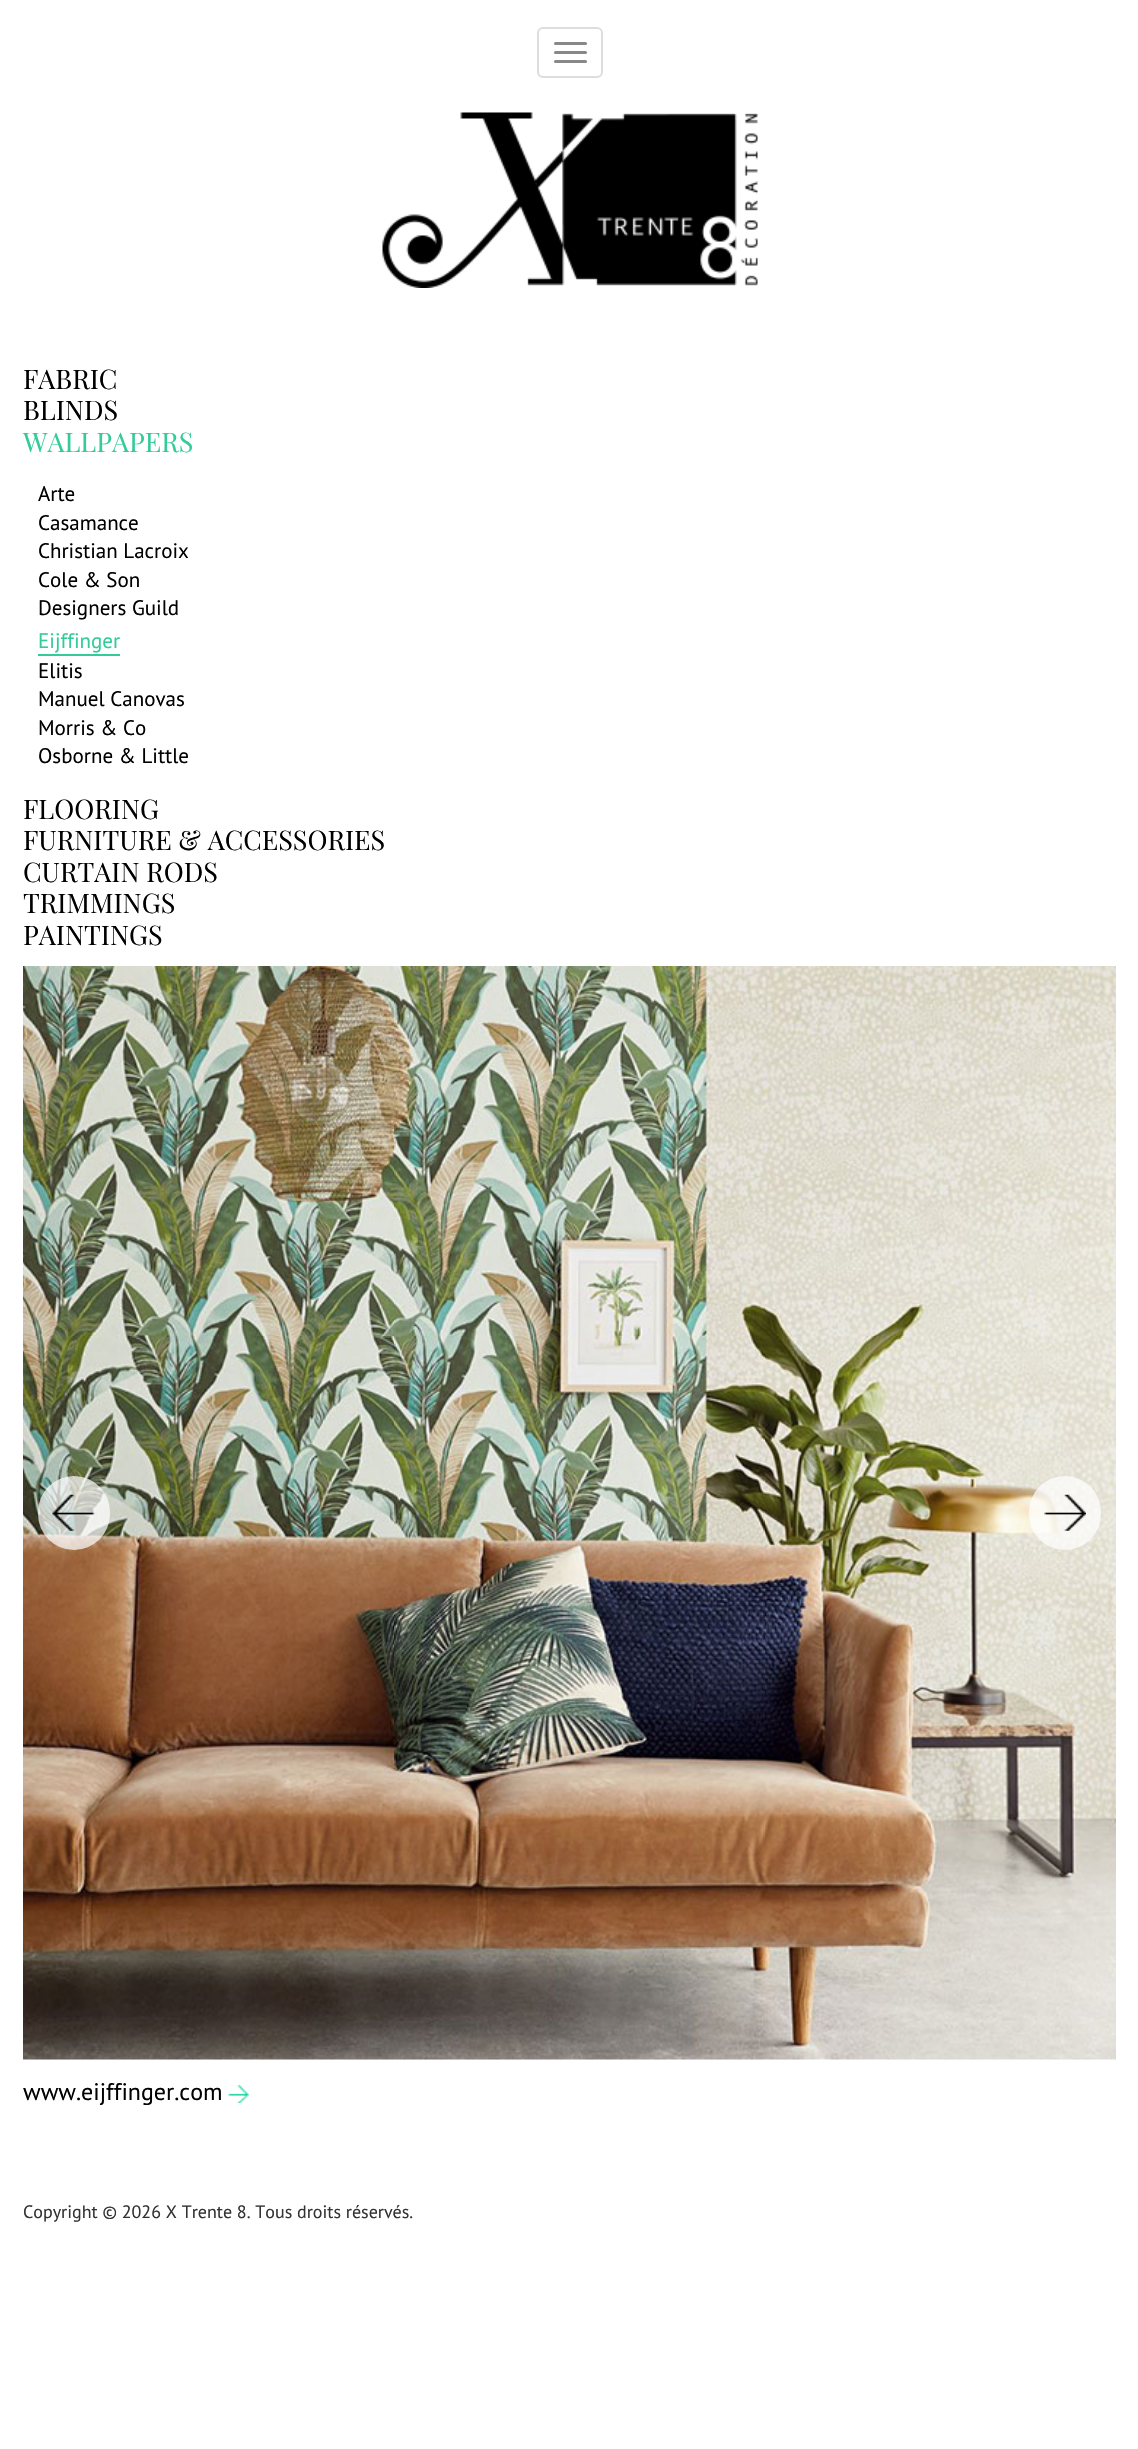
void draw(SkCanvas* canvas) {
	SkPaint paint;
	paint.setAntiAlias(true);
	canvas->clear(0xffffffff);
	paint.setStroke(true);
	paint.setStrokeWidth(2);
	paint.setColor(0xffdddddd);
	canvas->drawRoundRect(SkRect::MakeXYWH(538, 28, 64, 49), 5, 5, paint);
	paint.setStroke(false);
	paint.setColor(0xff888888);
	canvas->drawRoundRect(SkRect::MakeXYWH(554, 42, 33, 3), 1.5, 1.5, paint);
	canvas->drawRoundRect(SkRect::MakeXYWH(554, 51, 33, 3), 1.5, 1.5, paint);
	canvas->drawRoundRect(SkRect::MakeXYWH(554, 60, 33, 3), 1.5, 1.5, paint);
	canvas->drawImageRect(SkImages::DeferredFromEncodedData(SkData::MakeFromFileName("img1.png")), SkRect::MakeXYWH(382, 112, 376, 176), SkSamplingOptions());
	SkFont f1(fontMgr->matchFamilyStyle("Playfair Display", SkFontStyle::Normal()), 27);
	f1.setSubpixel(true);
	paint.setColor(0xff000000);
	canvas->drawString("FABRIC", 23, 389, f1, paint);
	canvas->drawString("BLINDS", 23, 420, f1, paint);
	paint.setColor(0xff33cc99);
	canvas->drawString("WALLPAPERS", 23, 452, f1, paint);
	SkFont f2(fontMgr->matchFamilyStyle("PT Sans", SkFontStyle::Normal()), 21);
	f2.setSubpixel(true);
	paint.setColor(0xff000000);
	canvas->drawString("Arte", 38, 501, f2, paint);
	canvas->drawString("Casamance", 38, 530, f2, paint);
	canvas->drawString("Christian Lacroix", 38, 558, f2, paint);
	canvas->drawString("Cole & Son", 38, 587, f2, paint);
	canvas->drawString("Designers Guild", 38, 615, f2, paint);
	paint.setColor(0xff33cc99);
	canvas->drawString("Eijffinger", 38, 648, f2, paint);
	canvas->drawRect(SkRect::MakeXYWH(38, 654, 82, 2), paint);
	paint.setColor(0xff000000);
	canvas->drawString("Elitis", 38, 678, f2, paint);
	canvas->drawString("Manuel Canovas", 38, 706, f2, paint);
	canvas->drawString("Morris & Co", 38, 735, f2, paint);
	canvas->drawString("Osborne & Little", 38, 763, f2, paint);
	canvas->drawString("FLOORING", 23, 819, f1, paint);
	canvas->drawString("FURNITURE & ACCESSORIES", 23, 850, f1, paint);
	canvas->drawString("CURTAIN RODS", 23, 882, f1, paint);
	canvas->drawString("TRIMMINGS", 23, 913, f1, paint);
	canvas->drawString("PAINTINGS", 23, 945, f1, paint);
	canvas->drawImageRect(SkImages::DeferredFromEncodedData(SkData::MakeFromFileName("img2.png")), SkRect::MakeXYWH(23, 966, 1093, 1094), SkSamplingOptions());
	paint.setColor(0xb3ffffff);
	canvas->drawRoundRect(SkRect::MakeXYWH(38, 1476, 72, 74), 36, 36, paint);
	canvas->drawImageRect(SkImages::DeferredFromEncodedData(SkData::MakeFromFileName("img3.png")), SkRect::MakeXYWH(52, 1494, 43, 37), SkSamplingOptions());
	canvas->drawRoundRect(SkRect::MakeXYWH(1029, 1476, 72, 74), 36, 36, paint);
	canvas->drawImageRect(SkImages::DeferredFromEncodedData(SkData::MakeFromFileName("img4.png")), SkRect::MakeXYWH(1044, 1494, 42, 37), SkSamplingOptions());
	SkFont f3(fontMgr->matchFamilyStyle("PT Sans", SkFontStyle::Normal()), 24);
	f3.setSubpixel(true);
	paint.setColor(0xff000000);
	canvas->drawString("www.eijffinger.com", 23, 2100, f3, paint);
	canvas->drawImageRect(SkImages::DeferredFromEncodedData(SkData::MakeFromFileName("img5.png")), SkRect::MakeXYWH(228, 2085, 21, 18), SkSamplingOptions());
	SkFont f4(fontMgr->matchFamilyStyle("PT Sans", SkFontStyle::Normal()), 18);
	f4.setSubpixel(true);
	paint.setColor(0xff333333);
	canvas->drawString("Copyright © 2026 X Trente 8. Tous droits réservés.", 23, 2218, f4, paint);
}
